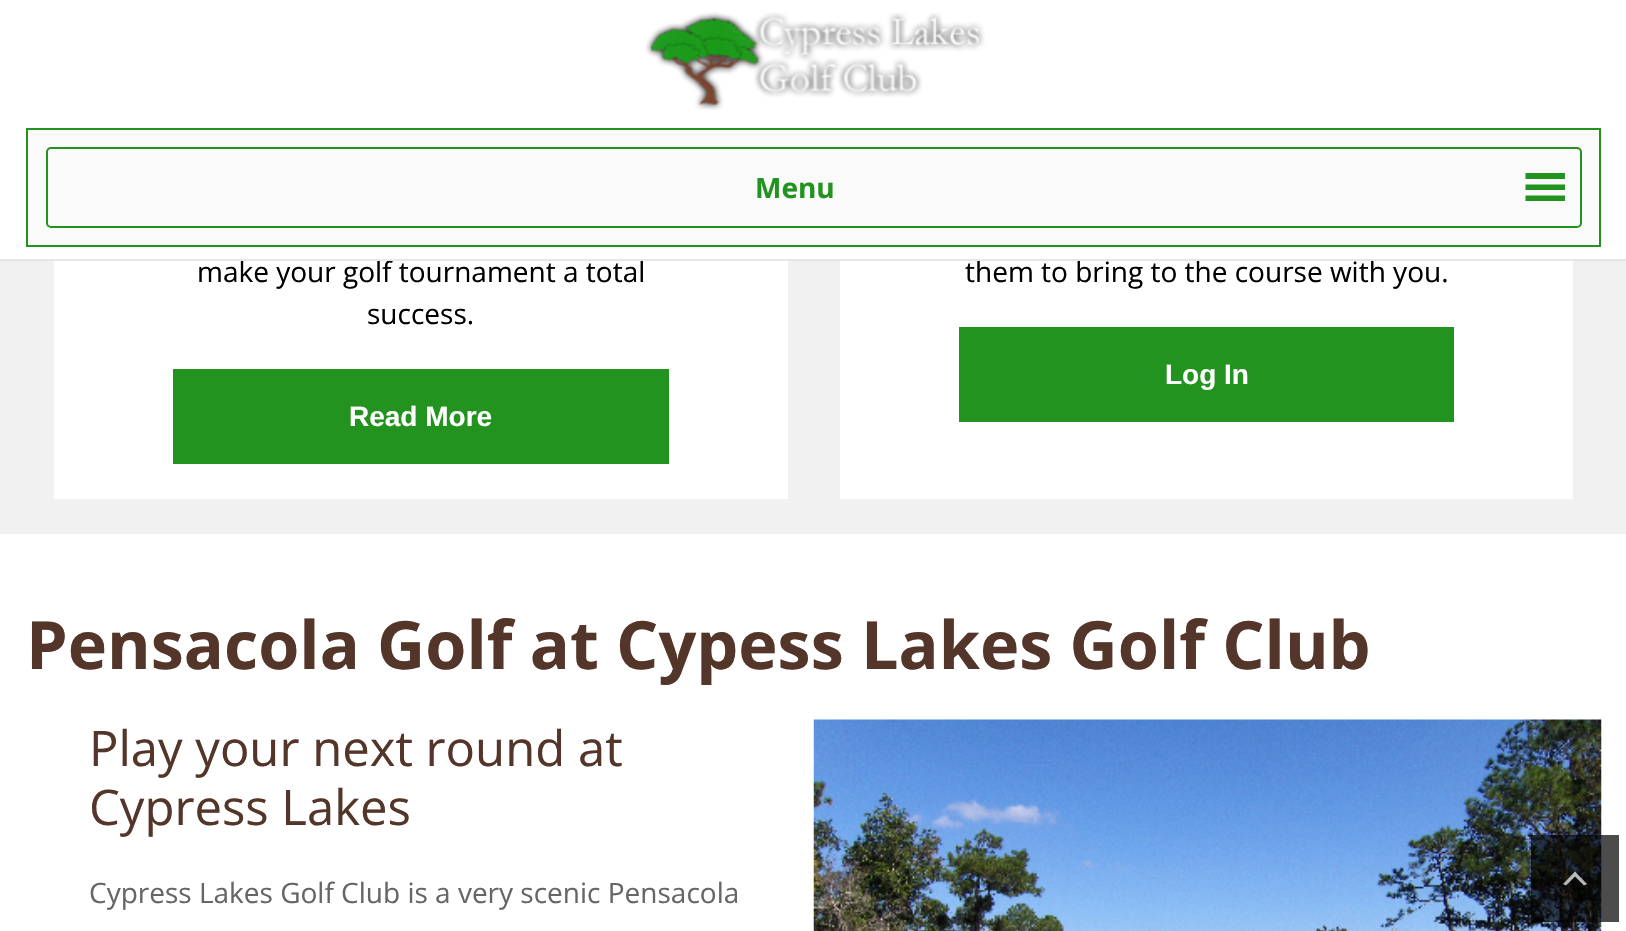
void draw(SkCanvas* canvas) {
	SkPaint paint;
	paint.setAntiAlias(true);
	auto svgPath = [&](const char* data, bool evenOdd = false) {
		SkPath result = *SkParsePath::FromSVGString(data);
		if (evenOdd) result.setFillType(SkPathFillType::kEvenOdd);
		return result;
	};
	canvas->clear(0xffffffff);
	paint.setColor(0xfff1f1f1);
	canvas->drawRect(SkRect::MakeXYWH(0, 261, 1626, 273), paint);
	paint.setColor(0xffffffff);
	canvas->drawRect(SkRect::MakeXYWH(54, 261, 734, 238), paint);
	SkFont f1(fontMgr->matchFamilyStyle("Open Sans", SkFontStyle::Normal()), 28);
	f1.setSubpixel(true);
	paint.setColor(0xff000000);
	canvas->drawString("make your golf tournament a total", 197, 282, f1, paint);
	paint.setColor(0xffffffff);
	canvas->drawRect(SkRect::MakeXYWH(840, 261, 733, 238), paint);
	paint.setColor(0xff000000);
	canvas->drawString("them to bring to the course with you.", 965, 282, f1, paint);
	paint.setColor(0xffe6e6e6);
	canvas->drawRect(SkRect::MakeXYWH(0, 259, 1626, 2), paint);
	canvas->drawImageRect(SkImages::DeferredFromEncodedData(SkData::MakeFromFileName("img1.png")), SkRect::MakeXYWH(646, 12, 339, 98), SkSamplingOptions());
	paint.setColor(0xfffafafa);
	canvas->drawRect(SkRect::MakeXYWH(27, 129, 1573, 117), paint);
	paint.setStroke(true);
	paint.setStrokeWidth(2);
	paint.setColor(0xff22931e);
	canvas->drawRect(SkRect::MakeXYWH(27, 129, 1573, 117), paint);
	canvas->drawRoundRect(SkRect::MakeXYWH(47, 148, 1534, 79), 4, 4, paint);
	SkFont f2(fontMgr->matchFamilyStyle("Open Sans", SkFontStyle::Bold()), 28);
	f2.setSubpixel(true);
	paint.setStroke(false);
	canvas->drawString("Menu", 755, 198, f2, paint);
	canvas->drawPath(svgPath("M1525.5 201H1565V195.5H1525.5ZM1525.5 173V179H1565V173ZM1525.5 190H1565V184.5H1525.5Z"), paint);
	paint.setColor(0xff000000);
	canvas->drawString("success.", 367, 324, f1, paint);
	paint.setColor(0xff22931e);
	canvas->drawRect(SkRect::MakeXYWH(173, 369, 496, 95), paint);
	SkFont f3(fontMgr->matchFamilyStyle("Liberation Sans", SkFontStyle::Bold()), 28);
	f3.setSubpixel(true);
	paint.setColor(0xffffffff);
	canvas->drawString("Read More", 349, 426, f3, paint);
	paint.setColor(0xff22931e);
	canvas->drawRect(SkRect::MakeXYWH(959, 327, 495, 95), paint);
	paint.setColor(0xffffffff);
	canvas->drawString("Log In", 1165, 384, f3, paint);
	SkFont f4(fontMgr->matchFamilyStyle("Open Sans", SkFontStyle::Bold()), 66.5);
	f4.setSubpixel(true);
	paint.setColor(0xff543529);
	canvas->drawString("Pensacola Golf at Cypess Lakes Golf Club", 26, 669, f4, paint);
	SkFont f5(fontMgr->matchFamilyStyle("Open Sans", SkFontStyle::Normal()), 49);
	f5.setSubpixel(true);
	canvas->drawString("Play your next round at", 89, 766, f5, paint);
	canvas->drawString("Cypress Lakes", 89, 825, f5, paint);
	paint.setColor(0xff666666);
	canvas->drawString("Cypress Lakes Golf Club is a very scenic Pensacola", 89, 903, f1, paint);
	canvas->drawImageRect(SkImages::DeferredFromEncodedData(SkData::MakeFromFileName("img2.png")), SkRect::MakeXYWH(813, 719, 789, 212), SkSamplingOptions());
	paint.setColor(0xb3000000);
	canvas->drawRect(SkRect::MakeXYWH(1531, 835, 88, 87), paint);
	paint.setColor(0xb3ffffff);
	canvas->drawPath(svgPath("M1584 885.5L1575 876.5L1566 885.5L1563 884L1575 871.5L1587 884Z"), paint);
}
